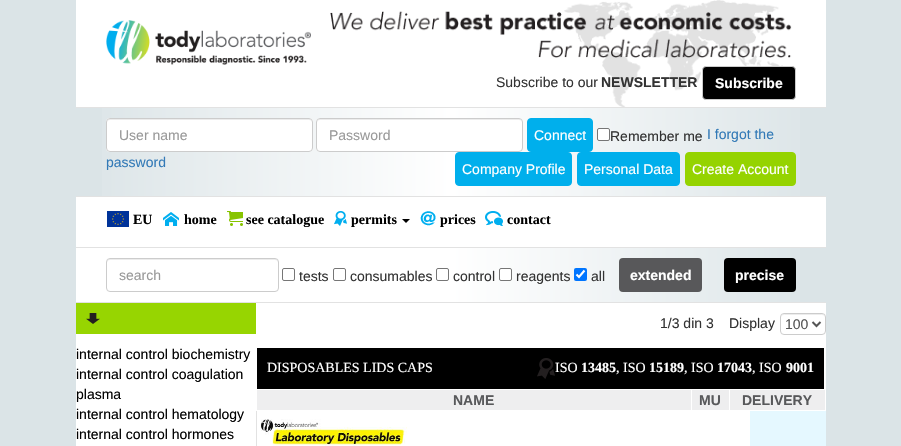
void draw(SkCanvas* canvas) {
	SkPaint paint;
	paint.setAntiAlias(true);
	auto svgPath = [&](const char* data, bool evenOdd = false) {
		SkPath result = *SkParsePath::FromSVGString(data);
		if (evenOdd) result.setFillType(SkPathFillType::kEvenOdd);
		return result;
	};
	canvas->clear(0xffdbe4e7);
	paint.setColor(0xffffffff);
	canvas->drawRect(SkRect::MakeXYWH(76, 0, 750, 107), paint);
	canvas->drawImageRect(SkImages::DeferredFromEncodedData(SkData::MakeFromFileName("img1.png")), SkRect::MakeXYWH(106, 20, 205, 45), SkSamplingOptions());
	canvas->drawImageRect(SkImages::DeferredFromEncodedData(SkData::MakeFromFileName("img2.png")), SkRect::MakeXYWH(564, 0, 219, 107), SkSamplingOptions());
	canvas->drawImageRect(SkImages::DeferredFromEncodedData(SkData::MakeFromFileName("img3.png")), SkRect::MakeXYWH(330, 11, 462, 47), SkSamplingOptions());
	SkFont f1(fontMgr->matchFamilyStyle("Liberation Sans", SkFontStyle::Normal()), 14);
	f1.setSubpixel(true);
	paint.setColor(0xff333333);
	canvas->drawString("Subscribe to our", 496, 87, f1, paint);
	SkFont f2(fontMgr->matchFamilyStyle("Liberation Sans", SkFontStyle::Bold()), 14);
	f2.setSubpixel(true);
	canvas->drawString("NEWSLETTER", 601, 87, f2, paint);
	paint.setColor(0xff000000);
	canvas->drawRoundRect(SkRect::MakeXYWH(702.5, 66.5, 93, 33), 3.5, 3.5, paint);
	paint.setStroke(true);
	paint.setStrokeWidth(1);
	paint.setColor(0xffcccccc);
	canvas->drawRoundRect(SkRect::MakeXYWH(702.5, 66.5, 93, 33), 3.5, 3.5, paint);
	paint.setStroke(false);
	paint.setColor(0xffffffff);
	canvas->drawString("Subscribe", 715, 88, f2, paint);
	{
		const SkColor colors[] = {0xffdbe4e7, 0xffffffff, 0xffdbe4e7};
		const float stops[] = {0, 0.5, 1};
		const SkPoint ends[] = {{76, 152}, {826, 152}};
		paint.setShader(SkGradientShader::MakeLinear(ends, colors, stops, 3, SkTileMode::kClamp));
		paint.setAlpha(255);
	}
	canvas->drawRect(SkRect::MakeXYWH(102, 108, 698, 88), paint);
	paint.setShader(nullptr);
	paint.setColor(0xffe2e2e2);
	canvas->drawRect(SkRect::MakeXYWH(76, 107, 750, 1), paint);
	canvas->drawRect(SkRect::MakeXYWH(76, 196, 750, 1), paint);
	paint.setColor(0xffffffff);
	canvas->drawRoundRect(SkRect::MakeXYWH(106, 118, 207, 34), 4, 4, paint);
	paint.setColor(0xffececec);
	canvas->drawPath(svgPath("M110 120H309C311 120 312 121 312 123C312 121 311 119 309 119H110C108 119 107 121 107 123C107 121 108 120 110 120Z"), paint);
	paint.setStroke(true);
	paint.setColor(0xffcccccc);
	canvas->drawRoundRect(SkRect::MakeXYWH(106.5, 118.5, 206, 33), 3.5, 3.5, paint);
	paint.setStroke(false);
	paint.setColor(0xff999999);
	canvas->drawString("User name", 119, 140, f1, paint);
	paint.setColor(0xffffffff);
	canvas->drawRoundRect(SkRect::MakeXYWH(316, 118, 207, 34), 4, 4, paint);
	paint.setColor(0xffececec);
	canvas->drawPath(svgPath("M320 120H519C521 120 522 121 522 123C522 121 521 119 519 119H320C318 119 317 121 317 123C317 121 318 120 320 120Z"), paint);
	paint.setStroke(true);
	paint.setColor(0xffcccccc);
	canvas->drawRoundRect(SkRect::MakeXYWH(316.5, 118.5, 206, 33), 3.5, 3.5, paint);
	paint.setStroke(false);
	paint.setColor(0xff999999);
	canvas->drawString("Password", 329, 140, f1, paint);
	paint.setColor(0xff00afec);
	canvas->drawRoundRect(SkRect::MakeXYWH(527.5, 118.5, 65, 33), 3.5, 3.5, paint);
	paint.setStroke(true);
	canvas->drawRoundRect(SkRect::MakeXYWH(527.5, 118.5, 65, 33), 3.5, 3.5, paint);
	paint.setStroke(false);
	paint.setColor(0xffffffff);
	canvas->drawString("Connect", 534, 140, f1, paint);
	canvas->drawRoundRect(SkRect::MakeXYWH(597.5, 128.5, 12, 12), 1.5, 1.5, paint);
	paint.setStroke(true);
	paint.setColor(0xff767676);
	canvas->drawRoundRect(SkRect::MakeXYWH(597.5, 128.5, 12, 12), 1.5, 1.5, paint);
	paint.setStroke(false);
	paint.setColor(0xff333333);
	canvas->drawString("Remember me", 610, 141, f1, paint);
	paint.setColor(0xff337ab7);
	canvas->drawString("I forgot the", 707, 139, f1, paint);
	canvas->drawString("password", 106, 167, f1, paint);
	paint.setColor(0xff00afec);
	canvas->drawRoundRect(SkRect::MakeXYWH(455.5, 152.5, 116, 33), 3.5, 3.5, paint);
	paint.setStroke(true);
	canvas->drawRoundRect(SkRect::MakeXYWH(455.5, 152.5, 116, 33), 3.5, 3.5, paint);
	paint.setStroke(false);
	paint.setColor(0xffffffff);
	canvas->drawString("Company Profile", 462, 174, f1, paint);
	paint.setColor(0xff00afec);
	canvas->drawRoundRect(SkRect::MakeXYWH(577.5, 152.5, 102, 33), 3.5, 3.5, paint);
	paint.setStroke(true);
	canvas->drawRoundRect(SkRect::MakeXYWH(577.5, 152.5, 102, 33), 3.5, 3.5, paint);
	paint.setStroke(false);
	paint.setColor(0xffffffff);
	canvas->drawString("Personal Data", 584, 174, f1, paint);
	paint.setColor(0xff95d300);
	canvas->drawRoundRect(SkRect::MakeXYWH(685.5, 152.5, 110, 33), 3.5, 3.5, paint);
	paint.setStroke(true);
	canvas->drawRoundRect(SkRect::MakeXYWH(685.5, 152.5, 110, 33), 3.5, 3.5, paint);
	paint.setStroke(false);
	paint.setColor(0xffffffff);
	canvas->drawString("Create Account", 692, 174, f1, paint);
	canvas->drawRect(SkRect::MakeXYWH(76, 197, 750, 50), paint);
	canvas->drawImageRect(SkImages::DeferredFromEncodedData(SkData::MakeFromFileName("img4.png")), SkRect::MakeXYWH(107, 211, 22, 16), SkSamplingOptions());
	SkFont f3(fontMgr->matchFamilyStyle("Liberation Serif", SkFontStyle::Bold()), 14);
	f3.setSubpixel(true);
	paint.setColor(0xff000000);
	canvas->drawString("EU", 133, 224, f3, paint);
	canvas->drawImageRect(SkImages::DeferredFromEncodedData(SkData::MakeFromFileName("img5.png")), SkRect::MakeXYWH(163, 212, 16, 14), SkSamplingOptions());
	canvas->drawString("home", 184, 224, f3, paint);
	canvas->drawImageRect(SkImages::DeferredFromEncodedData(SkData::MakeFromFileName("img6.png")), SkRect::MakeXYWH(227, 211, 16, 15), SkSamplingOptions());
	canvas->drawString("see catalogue", 246, 224, f3, paint);
	canvas->drawImageRect(SkImages::DeferredFromEncodedData(SkData::MakeFromFileName("img7.png")), SkRect::MakeXYWH(334, 211, 13, 15), SkSamplingOptions());
	canvas->drawString("permits", 351, 224, f3, paint);
	canvas->drawPath(svgPath("M402 219H410L406 223Z"), paint);
	canvas->drawImageRect(SkImages::DeferredFromEncodedData(SkData::MakeFromFileName("img8.png")), SkRect::MakeXYWH(420, 211, 16, 15), SkSamplingOptions());
	canvas->drawString("prices", 440, 224, f3, paint);
	canvas->drawImageRect(SkImages::DeferredFromEncodedData(SkData::MakeFromFileName("img9.png")), SkRect::MakeXYWH(485, 211, 18, 15), SkSamplingOptions());
	canvas->drawString("contact", 507, 224, f3, paint);
	{
		const SkColor colors[] = {0xffffffff, 0xffffffff, 0xffdbe4e7};
		const float stops[] = {0, 0.5, 1};
		const SkPoint ends[] = {{76, 275}, {826, 275}};
		paint.setShader(SkGradientShader::MakeLinear(ends, colors, stops, 3, SkTileMode::kClamp));
		paint.setAlpha(255);
	}
	canvas->drawRect(SkRect::MakeXYWH(76, 248, 724, 54), paint);
	paint.setShader(nullptr);
	paint.setColor(0xffe2e2e2);
	canvas->drawRect(SkRect::MakeXYWH(76, 247, 750, 1), paint);
	canvas->drawRect(SkRect::MakeXYWH(76, 302, 750, 1), paint);
	paint.setColor(0xffececec);
	canvas->drawPath(svgPath("M110 260H275C277 260 278 261 278 263V262C278 260 277 259 275 259H110C108 259 107 260 107 262V263C107 261 108 260 110 260Z"), paint);
	paint.setStroke(true);
	paint.setColor(0xffcccccc);
	canvas->drawRoundRect(SkRect::MakeXYWH(106.5, 258.5, 172, 33), 3.5, 3.5, paint);
	paint.setStroke(false);
	paint.setColor(0xff999999);
	canvas->drawString("search", 119, 280, f1, paint);
	paint.setStroke(true);
	paint.setColor(0xff767676);
	canvas->drawRoundRect(SkRect::MakeXYWH(282.5, 268.5, 12, 12), 1.5, 1.5, paint);
	paint.setStroke(false);
	paint.setColor(0xff333333);
	canvas->drawString("tests", 299, 281, f1, paint);
	paint.setStroke(true);
	paint.setColor(0xff767676);
	canvas->drawRoundRect(SkRect::MakeXYWH(333.5, 268.5, 12, 12), 1.5, 1.5, paint);
	paint.setStroke(false);
	paint.setColor(0xff333333);
	canvas->drawString("consumables", 350, 281, f1, paint);
	paint.setStroke(true);
	paint.setColor(0xff767676);
	canvas->drawRoundRect(SkRect::MakeXYWH(436.5, 268.5, 12, 12), 1.5, 1.5, paint);
	paint.setStroke(false);
	paint.setColor(0xff333333);
	canvas->drawString("control", 453, 281, f1, paint);
	paint.setColor(0xffffffff);
	canvas->drawRoundRect(SkRect::MakeXYWH(499.5, 268.5, 12, 12), 1.5, 1.5, paint);
	paint.setStroke(true);
	paint.setColor(0xff767676);
	canvas->drawRoundRect(SkRect::MakeXYWH(499.5, 268.5, 12, 12), 1.5, 1.5, paint);
	paint.setStroke(false);
	paint.setColor(0xff333333);
	canvas->drawString("reagents", 516, 281, f1, paint);
	paint.setColor(0xff0075ff);
	canvas->drawRoundRect(SkRect::MakeXYWH(574, 268, 13, 13), 2, 2, paint);
	paint.setStroke(true);
	paint.setStrokeWidth(2.1);
	paint.setColor(0xffffffff);
	canvas->drawPath(svgPath("M576.5 274.5L579 277L584.5 270.5"), paint);
	paint.setStroke(false);
	paint.setColor(0xff333333);
	canvas->drawString("all", 591, 281, f1, paint);
	paint.setColor(0xff58585a);
	canvas->drawRoundRect(SkRect::MakeXYWH(619, 258, 83, 34), 4, 4, paint);
	paint.setColor(0xffffffff);
	canvas->drawString("extended", 630, 280, f2, paint);
	paint.setColor(0xff000000);
	canvas->drawRoundRect(SkRect::MakeXYWH(724, 258, 72, 34), 4, 4, paint);
	paint.setColor(0xffffffff);
	canvas->drawString("precise", 735, 280, f2, paint);
	canvas->drawRect(SkRect::MakeXYWH(76, 303, 750, 143), paint);
	paint.setColor(0xff97d501);
	canvas->drawRect(SkRect::MakeXYWH(76, 303, 180, 31), paint);
	canvas->drawImageRect(SkImages::DeferredFromEncodedData(SkData::MakeFromFileName("img10.png")), SkRect::MakeXYWH(86, 313, 14, 11), SkSamplingOptions());
	paint.setColor(0xff000000);
	canvas->drawString("internal control biochemistry", 76, 359, f1, paint);
	canvas->drawString("internal control coagulation", 76, 379, f1, paint);
	canvas->drawString("plasma", 76, 399, f1, paint);
	canvas->drawString("internal control hematology", 76, 419, f1, paint);
	canvas->drawString("internal control hormones", 76, 439, f1, paint);
	paint.setColor(0xff333333);
	canvas->drawString("1/3 din 3", 660, 328, f1, paint);
	canvas->drawString("Display", 729, 328, f1, paint);
	paint.setColor(0xffececec);
	canvas->drawPath(svgPath("M784 315H822C824 315 825 316 825 318C825 313 820 314 816 314H790C786 314 781 313 781 318C781 316 782 315 784 315Z"), paint);
	paint.setStroke(true);
	paint.setStrokeWidth(1);
	paint.setColor(0xffcccccc);
	canvas->drawRoundRect(SkRect::MakeXYWH(780.5, 313.5, 45, 21), 3.5, 3.5, paint);
	paint.setStrokeWidth(2);
	paint.setColor(0xff555555);
	canvas->drawPath(svgPath("M812.5 322L816.5 326L820.5 322"), paint);
	paint.setStroke(false);
	canvas->drawString("100", 785, 329, f1, paint);
	paint.setColor(0xff000000);
	canvas->drawRect(SkRect::MakeXYWH(257, 348, 567, 41), paint);
	SkFont f4(fontMgr->matchFamilyStyle("Liberation Serif", SkFontStyle::Normal()), 14);
	f4.setSubpixel(true);
	paint.setColor(0xffffffff);
	canvas->drawString("DISPOSABLES LIDS CAPS", 267, 372, f4, paint);
	canvas->drawImageRect(SkImages::DeferredFromEncodedData(SkData::MakeFromFileName("img11.png")), SkRect::MakeXYWH(537, 358, 18, 21), SkSamplingOptions());
	canvas->drawString("ISO", 555, 372, f4, paint);
	canvas->drawString("13485", 581, 372, f3, paint);
	canvas->drawString(", ISO", 616, 372, f4, paint);
	canvas->drawString("15189", 649, 372, f3, paint);
	canvas->drawString(", ISO", 684, 372, f4, paint);
	canvas->drawString("17043", 717, 372, f3, paint);
	canvas->drawString(", ISO", 752, 372, f4, paint);
	canvas->drawString("9001", 786, 372, f3, paint);
	paint.setColor(0xffeeeeef);
	canvas->drawRect(SkRect::MakeXYWH(257, 390, 434, 20), paint);
	paint.setColor(0xff58595b);
	canvas->drawString("NAME", 453, 405, f2, paint);
	paint.setColor(0xffeeeeef);
	canvas->drawRect(SkRect::MakeXYWH(692, 390, 37, 20), paint);
	paint.setColor(0xff58595b);
	canvas->drawString("MU", 699, 405, f2, paint);
	paint.setColor(0xffeeeeef);
	canvas->drawRect(SkRect::MakeXYWH(730, 390, 95, 20), paint);
	paint.setColor(0xff58595b);
	canvas->drawString("DELIVERY", 742, 405, f2, paint);
	paint.setColor(0xffe2e2e2);
	canvas->drawRect(SkRect::MakeXYWH(256, 411, 1, 35), paint);
	canvas->drawImageRect(SkImages::DeferredFromEncodedData(SkData::MakeFromFileName("img12.png")), SkRect::MakeXYWH(261, 419, 146, 27), SkSamplingOptions());
	paint.setColor(0xffe5f8ff);
	canvas->drawRect(SkRect::MakeXYWH(750, 411, 76, 35), paint);
}
